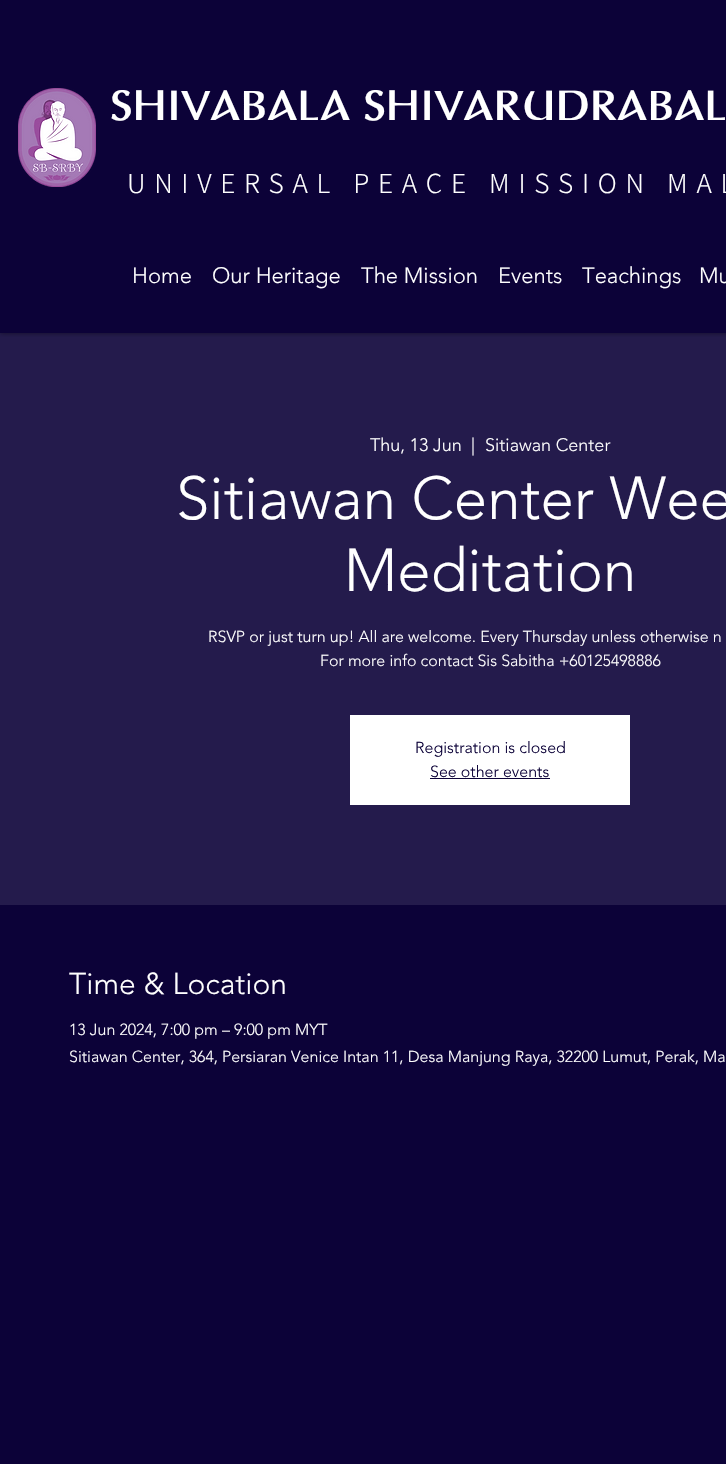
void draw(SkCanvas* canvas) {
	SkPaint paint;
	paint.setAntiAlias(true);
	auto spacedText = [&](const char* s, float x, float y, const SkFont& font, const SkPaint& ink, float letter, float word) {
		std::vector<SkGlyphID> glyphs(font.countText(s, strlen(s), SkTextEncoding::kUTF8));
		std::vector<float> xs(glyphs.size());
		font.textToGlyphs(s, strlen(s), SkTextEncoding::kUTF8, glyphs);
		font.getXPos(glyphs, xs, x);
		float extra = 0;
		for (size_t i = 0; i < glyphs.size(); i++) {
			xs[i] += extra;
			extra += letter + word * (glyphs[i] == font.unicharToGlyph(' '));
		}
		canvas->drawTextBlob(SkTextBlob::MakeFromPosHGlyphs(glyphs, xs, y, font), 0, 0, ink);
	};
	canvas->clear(0xff0c0238);
	paint.setColor(0xff241b4c);
	canvas->drawRect(SkRect::MakeXYWH(0, 333, 726, 572), paint);
	canvas->save();
	canvas->clipRect(SkRect::MakeXYWH(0, 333, 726, 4));
	paint.setColor(0x80000000);
	paint.setMaskFilter(SkMaskFilter::MakeBlur(kNormal_SkBlurStyle, 2.5));
	canvas->drawRect(SkRect::MakeXYWH(0, 0, 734, 333), paint);
	paint.setMaskFilter(nullptr);
	canvas->restore();
	canvas->drawImageRect(SkImages::DeferredFromEncodedData(SkData::MakeFromFileName("img1.png")), SkRect::MakeXYWH(18, 88, 78, 99), SkSamplingOptions());
	SkFont f1(fontMgr->matchFamilyStyle("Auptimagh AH", SkFontStyle::Normal()), 42);
	f1.setSubpixel(true);
	paint.setColor(0xffffffff);
	canvas->drawString("SHIVABALA SHIVARUDRABAL", 110, 120, f1, paint);
	SkFont f2(fontMgr->matchFamilyStyle("Assistant", SkFontStyle(300, SkFontStyle::kNormal_Width, SkFontStyle::kUpright_Slant)), 29);
	f2.setSubpixel(true);
	spacedText("UNIVERSAL PEACE MISSION MAL", 127, 193, f2, paint, 8.7, 0);
	SkFont f3(fontMgr->matchFamilyStyle("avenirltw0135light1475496", SkFontStyle(300, SkFontStyle::kNormal_Width, SkFontStyle::kUpright_Slant)), 22);
	f3.setSubpixel(true);
	canvas->drawString("Home", 132, 283, f3, paint);
	canvas->drawString("Our Heritage", 212, 283, f3, paint);
	canvas->drawString("The Mission", 361, 283, f3, paint);
	canvas->drawString("Events", 498, 283, f3, paint);
	canvas->drawString("Teachings", 582, 283, f3, paint);
	canvas->drawString("Mu", 699, 283, f3, paint);
	SkFont f4(fontMgr->matchFamilyStyle("avenirltw0135light1475496", SkFontStyle(300, SkFontStyle::kNormal_Width, SkFontStyle::kUpright_Slant)), 18);
	f4.setSubpixel(true);
	canvas->drawString("Thu, 13 Jun", 370, 451, f4, paint);
	canvas->drawString("|", 471, 451, f4, paint);
	canvas->drawString("Sitiawan Center", 485, 451, f4, paint);
	SkFont f5(fontMgr->matchFamilyStyle("avenirltw0135light1475496", SkFontStyle(300, SkFontStyle::kNormal_Width, SkFontStyle::kUpright_Slant)), 60);
	f5.setSubpixel(true);
	canvas->drawString("Sitiawan Center Wee", 176, 519, f5, paint);
	canvas->drawString("Meditation", 344, 591, f5, paint);
	SkFont f6(fontMgr->matchFamilyStyle("avenirltw0135light1475496", SkFontStyle(300, SkFontStyle::kNormal_Width, SkFontStyle::kUpright_Slant)), 16);
	f6.setSubpixel(true);
	canvas->drawString("RSVP or just turn up! All are welcome. Every Thursday unless otherwise n", 208, 642, f6, paint);
	canvas->drawString("For more info contact Sis Sabitha +60125498886", 320, 666, f6, paint);
	canvas->drawRect(SkRect::MakeXYWH(350, 715, 280, 90), paint);
	paint.setColor(0xff0c0238);
	canvas->drawString("Registration is closed", 415, 753, f6, paint);
	canvas->drawString("See other events", 430, 777, f6, paint);
	canvas->drawRect(SkRect::MakeXYWH(430, 778, 120, 1), paint);
	SkFont f7(fontMgr->matchFamilyStyle("avenirltw0135light1475496", SkFontStyle(300, SkFontStyle::kNormal_Width, SkFontStyle::kUpright_Slant)), 30);
	f7.setSubpixel(true);
	paint.setColor(0xffffffff);
	canvas->drawString("Time & Location", 69, 994, f7, paint);
	canvas->drawString("13 Jun 2024, 7:00 pm – 9:00 pm MYT", 69, 1035, f6, paint);
	canvas->drawString("Sitiawan Center, 364, Persiaran Venice Intan 11, Desa Manjung Raya, 32200 Lumut, Perak, Ma", 69, 1062, f6, paint);
}
